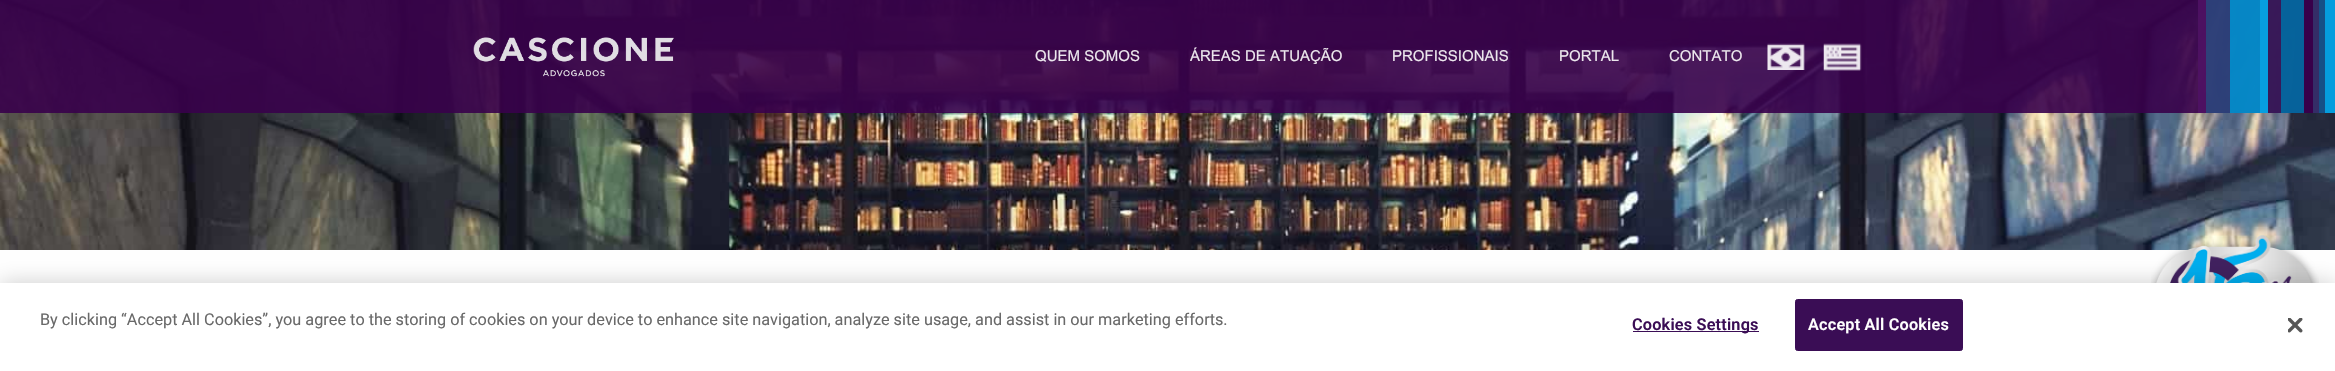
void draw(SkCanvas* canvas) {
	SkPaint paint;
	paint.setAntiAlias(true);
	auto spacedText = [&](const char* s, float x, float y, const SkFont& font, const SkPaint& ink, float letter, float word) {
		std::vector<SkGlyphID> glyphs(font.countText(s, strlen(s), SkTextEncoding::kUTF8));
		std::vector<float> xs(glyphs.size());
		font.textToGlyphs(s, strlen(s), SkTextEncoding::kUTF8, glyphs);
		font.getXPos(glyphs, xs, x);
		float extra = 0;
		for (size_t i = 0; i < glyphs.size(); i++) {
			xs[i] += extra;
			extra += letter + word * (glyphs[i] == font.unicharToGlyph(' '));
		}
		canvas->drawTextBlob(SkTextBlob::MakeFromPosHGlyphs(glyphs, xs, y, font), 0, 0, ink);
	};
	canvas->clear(0xffffffff);
	canvas->drawImageRect(SkImages::DeferredFromEncodedData(SkData::MakeFromFileName("img1.png")), SkRect::MakeXYWH(0, 0, 2335, 250), SkSamplingOptions());
	paint.setColor(0xe637004a);
	canvas->drawRect(SkRect::MakeXYWH(0, 0, 2304, 113), paint);
	canvas->drawImageRect(SkImages::DeferredFromEncodedData(SkData::MakeFromFileName("img2.png")), SkRect::MakeXYWH(473, 37, 201, 40), SkSamplingOptions());
	SkFont f1(fontMgr->matchFamilyStyle("Arial", SkFontStyle::Normal()), 15);
	f1.setSubpixel(true);
	paint.setColor(0xffece7ed);
	canvas->drawString("QUEM SOMOS", 1035, 61, f1, paint);
	canvas->drawString("ÁREAS DE ATUAÇÃO", 1190, 61, f1, paint);
	canvas->drawString("PROFISSIONAIS", 1392, 61, f1, paint);
	canvas->drawString("PORTAL", 1559, 61, f1, paint);
	canvas->drawString("CONTATO", 1669, 61, f1, paint);
	canvas->drawImageRect(SkImages::DeferredFromEncodedData(SkData::MakeFromFileName("img3.png")), SkRect::MakeXYWH(1767, 43, 38, 27), SkSamplingOptions());
	canvas->drawImageRect(SkImages::DeferredFromEncodedData(SkData::MakeFromFileName("img4.png")), SkRect::MakeXYWH(1823, 43, 39, 28), SkSamplingOptions());
	paint.setColor(0xe64e1163);
	canvas->drawRect(SkRect::MakeXYWH(2198, 0, 8, 113), paint);
	paint.setColor(0xe62b457c);
	canvas->drawRect(SkRect::MakeXYWH(2206, 0, 24, 113), paint);
	paint.setColor(0xe60094d1);
	canvas->drawRect(SkRect::MakeXYWH(2230, 0, 30, 113), paint);
	paint.setColor(0xe600aeef);
	canvas->drawRect(SkRect::MakeXYWH(2260, 0, 8, 113), paint);
	paint.setColor(0xe6371a59);
	canvas->drawRect(SkRect::MakeXYWH(2268, 0, 13, 113), paint);
	paint.setColor(0xe6006ca3);
	canvas->drawRect(SkRect::MakeXYWH(2281, 0, 23, 113), paint);
	paint.setColor(0xff37004a);
	canvas->drawRect(SkRect::MakeXYWH(2304, 0, 9, 113), paint);
	paint.setColor(0xff342d67);
	canvas->drawRect(SkRect::MakeXYWH(2313, 0, 6, 113), paint);
	paint.setColor(0xff165087);
	canvas->drawRect(SkRect::MakeXYWH(2319, 0, 6, 113), paint);
	paint.setColor(0xff059dde);
	canvas->drawRect(SkRect::MakeXYWH(2325, 0, 10, 113), paint);
	canvas->drawImageRect(SkImages::DeferredFromEncodedData(SkData::MakeFromFileName("img5.png")), SkRect::MakeXYWH(2151, 235, 168, 48), SkSamplingOptions());
	paint.setColor(0x33000000);
	paint.setMaskFilter(SkMaskFilter::MakeBlur(kNormal_SkBlurStyle, 11));
	canvas->drawRect(SkRect::MakeXYWH(0, 283, 2335, 88), paint);
	paint.setMaskFilter(nullptr);
	paint.setColor(0xffffffff);
	canvas->drawRect(SkRect::MakeXYWH(0, 283, 2335, 88), paint);
	SkFont f2(fontMgr->matchFamilyStyle("Roboto", SkFontStyle::Normal()), 16.25);
	f2.setSubpixel(true);
	paint.setColor(0xff696969);
	canvas->drawString("By clicking “Accept All Cookies”, you agree to the storing of cookies on your device to enhance site navigation, analyze site usage, and assist in our marketing efforts.", 40, 325, f2, paint);
	paint.setColor(0xff3a0d55);
	canvas->drawRect(SkRect::MakeXYWH(1633, 331, 126, 1), paint);
	SkFont f3(fontMgr->matchFamilyStyle("Roboto", SkFontStyle(600, SkFontStyle::kNormal_Width, SkFontStyle::kUpright_Slant)), 16.25);
	f3.setSubpixel(true);
	spacedText("Cookies Settings", 1632, 330, f3, paint, 0.2, 0);
	canvas->drawRoundRect(SkRect::MakeXYWH(1795.5, 299.5, 167, 51), 2, 2, paint);
	paint.setStroke(true);
	paint.setStrokeWidth(1);
	canvas->drawRoundRect(SkRect::MakeXYWH(1795.5, 299.5, 167, 51), 2, 2, paint);
	paint.setStroke(false);
	paint.setColor(0xffffffff);
	spacedText("Accept All Cookies", 1808, 330, f3, paint, 0.2, 0);
	canvas->drawImageRect(SkImages::DeferredFromEncodedData(SkData::MakeFromFileName("img6.png")), SkRect::MakeXYWH(2288, 318, 15, 15), SkSamplingOptions());
}
